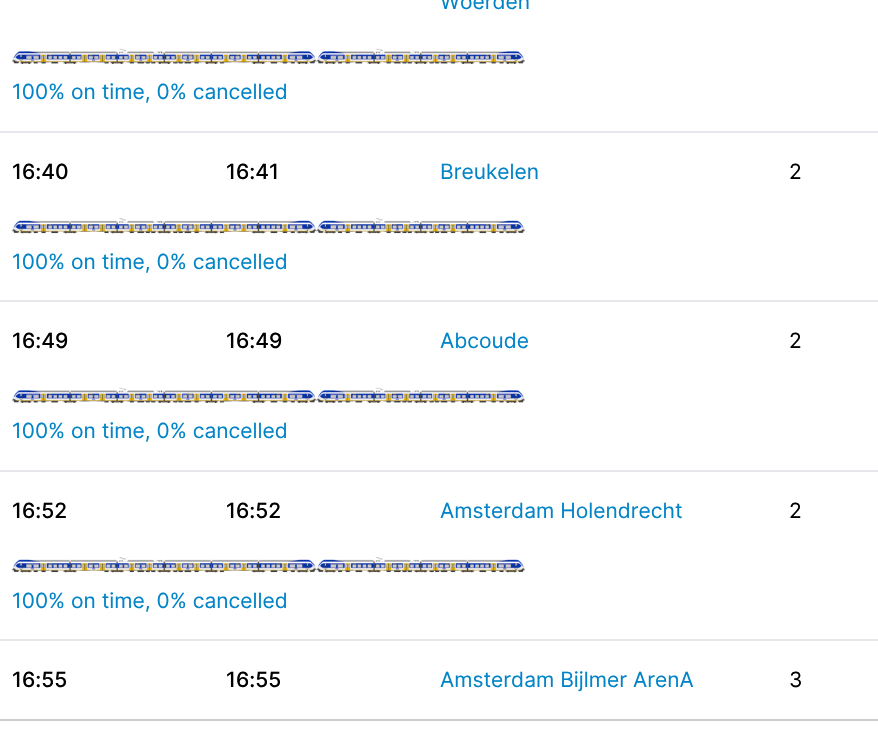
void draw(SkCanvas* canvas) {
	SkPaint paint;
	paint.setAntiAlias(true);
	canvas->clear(0xffffffff);
	paint.setColor(0xffe5e7eb);
	canvas->drawRect(SkRect::MakeXYWH(0, 131, 878, 2), paint);
	SkFont f1(fontMgr->matchFamilyStyle("Inter", SkFontStyle::Normal()), 21);
	f1.setSubpixel(true);
	paint.setColor(0xff0284c7);
	canvas->drawString("Woerden", 440, 9, f1, paint);
	canvas->drawImageRect(SkImages::DeferredFromEncodedData(SkData::MakeFromFileName("img1.png")), SkRect::MakeXYWH(12, 48, 305, 16), SkSamplingOptions());
	canvas->drawImageRect(SkImages::DeferredFromEncodedData(SkData::MakeFromFileName("img2.png")), SkRect::MakeXYWH(316, 48, 209, 16), SkSamplingOptions());
	canvas->drawString("100% on time, 0% cancelled", 12, 99, f1, paint);
	paint.setColor(0xffe5e7eb);
	canvas->drawRect(SkRect::MakeXYWH(0, 300, 878, 2), paint);
	SkFont f2(fontMgr->matchFamilyStyle("Inter", SkFontStyle(500, SkFontStyle::kNormal_Width, SkFontStyle::kUpright_Slant)), 21);
	f2.setSubpixel(true);
	paint.setColor(0xff000000);
	canvas->drawString("16:40", 12, 179, f2, paint);
	canvas->drawString("16:41", 226, 179, f2, paint);
	paint.setColor(0xff0284c7);
	canvas->drawString("Breukelen", 440, 179, f1, paint);
	paint.setColor(0xff000000);
	canvas->drawString("2", 789, 179, f1, paint);
	canvas->drawImageRect(SkImages::DeferredFromEncodedData(SkData::MakeFromFileName("img3.png")), SkRect::MakeXYWH(12, 218, 305, 16), SkSamplingOptions());
	canvas->drawImageRect(SkImages::DeferredFromEncodedData(SkData::MakeFromFileName("img4.png")), SkRect::MakeXYWH(316, 218, 209, 16), SkSamplingOptions());
	paint.setColor(0xff0284c7);
	canvas->drawString("100% on time, 0% cancelled", 12, 269, f1, paint);
	paint.setColor(0xffe5e7eb);
	canvas->drawRect(SkRect::MakeXYWH(0, 470, 878, 2), paint);
	paint.setColor(0xff000000);
	canvas->drawString("16:49", 12, 348, f2, paint);
	canvas->drawString("16:49", 226, 348, f2, paint);
	paint.setColor(0xff0284c7);
	canvas->drawString("Abcoude", 440, 348, f1, paint);
	paint.setColor(0xff000000);
	canvas->drawString("2", 789, 348, f1, paint);
	canvas->drawImageRect(SkImages::DeferredFromEncodedData(SkData::MakeFromFileName("img1.png")), SkRect::MakeXYWH(12, 387, 305, 16), SkSamplingOptions());
	canvas->drawImageRect(SkImages::DeferredFromEncodedData(SkData::MakeFromFileName("img2.png")), SkRect::MakeXYWH(316, 387, 209, 16), SkSamplingOptions());
	paint.setColor(0xff0284c7);
	canvas->drawString("100% on time, 0% cancelled", 12, 438, f1, paint);
	paint.setColor(0xffe5e7eb);
	canvas->drawRect(SkRect::MakeXYWH(0, 639, 878, 2), paint);
	paint.setColor(0xff000000);
	canvas->drawString("16:52", 12, 518, f2, paint);
	canvas->drawString("16:52", 226, 518, f2, paint);
	paint.setColor(0xff0284c7);
	canvas->drawString("Amsterdam Holendrecht", 440, 518, f1, paint);
	paint.setColor(0xff000000);
	canvas->drawString("2", 789, 518, f1, paint);
	canvas->drawImageRect(SkImages::DeferredFromEncodedData(SkData::MakeFromFileName("img3.png")), SkRect::MakeXYWH(12, 557, 305, 16), SkSamplingOptions());
	canvas->drawImageRect(SkImages::DeferredFromEncodedData(SkData::MakeFromFileName("img4.png")), SkRect::MakeXYWH(316, 557, 209, 16), SkSamplingOptions());
	paint.setColor(0xff0284c7);
	canvas->drawString("100% on time, 0% cancelled", 12, 608, f1, paint);
	paint.setColor(0xff000000);
	canvas->drawString("16:55", 12, 687, f2, paint);
	canvas->drawString("16:55", 226, 687, f2, paint);
	paint.setColor(0xff0284c7);
	canvas->drawString("Amsterdam Bijlmer ArenA", 440, 687, f1, paint);
	paint.setColor(0xff000000);
	canvas->drawString("3", 789, 687, f1, paint);
	paint.setColor(0xffcccccc);
	canvas->drawRect(SkRect::MakeXYWH(0, 719, 878, 2), paint);
}
